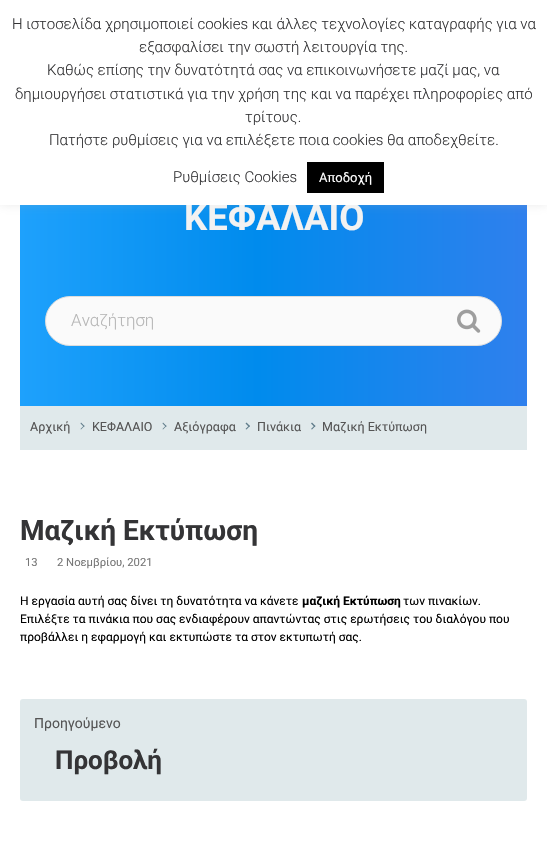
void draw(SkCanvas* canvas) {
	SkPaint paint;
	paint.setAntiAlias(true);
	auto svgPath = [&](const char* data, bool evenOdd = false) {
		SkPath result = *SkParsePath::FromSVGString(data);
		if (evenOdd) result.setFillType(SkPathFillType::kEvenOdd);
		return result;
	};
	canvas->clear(0xffffffff);
	{
		const SkColor colors[] = {0xff2f80ed, 0xff008bed, 0xff1ea1fc};
		const float stops[] = {0, 0.53, 1};
		const SkPoint ends[] = {{527, 203}, {20, 203}};
		paint.setShader(SkGradientShader::MakeLinear(ends, colors, stops, 3, SkTileMode::kClamp));
		paint.setAlpha(255);
	}
	canvas->drawRect(SkRect::MakeXYWH(20, 205, 507, 201), paint);
	paint.setShader(nullptr);
	paint.setColor(0x4dacabab);
	paint.setMaskFilter(SkMaskFilter::MakeBlur(kNormal_SkBlurStyle, 5));
	canvas->drawRect(SkRect::MakeXYWH(0, -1, 547, 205), paint);
	paint.setMaskFilter(nullptr);
	SkFont f1(fontMgr->matchFamilyStyle("Roboto", SkFontStyle::Bold()), 36.5);
	f1.setSubpixel(true);
	paint.setColor(0xfff2f2f2);
	canvas->drawString("ΚΕΦΑΛΑΙΟ", 184, 230, f1, paint);
	paint.setColor(0xffffffff);
	canvas->drawRect(SkRect::MakeXYWH(0, 0, 547, 205), paint);
	SkFont f2(fontMgr->matchFamilyStyle("Roboto", SkFontStyle(300, SkFontStyle::kNormal_Width, SkFontStyle::kUpright_Slant)), 15);
	f2.setSubpixel(true);
	paint.setColor(0xff343436);
	canvas->drawString("Η ιστοσελίδα χρησιμοποιεί cookies και άλλες τεχνολογίες καταγραφής για να", 12, 29, f2, paint);
	canvas->drawString("εξασφαλίσει την σωστή λειτουργία της.", 139, 52, f2, paint);
	canvas->drawString("Καθώς επίσης την δυνατότητά σας να επικοινωνήσετε μαζί μας, να", 47, 75, f2, paint);
	canvas->drawString("δημιουργήσει στατιστικά για την χρήση της και να παρέχει πληροφορίες από", 15, 99, f2, paint);
	canvas->drawString("τρίτους.", 245, 122, f2, paint);
	canvas->drawString("Πατήστε ρυθμίσεις για να επιλέξετε ποια cookies θα αποδεχθείτε.", 49, 145, f2, paint);
	canvas->drawString("Ρυθμίσεις Cookies", 173, 182, f2, paint);
	paint.setColor(0xff000000);
	canvas->drawRect(SkRect::MakeXYWH(307, 162, 77, 31), paint);
	SkFont f3(fontMgr->matchFamilyStyle("Roboto", SkFontStyle::Normal()), 13);
	f3.setSubpixel(true);
	paint.setColor(0xffffffff);
	canvas->drawString("Αποδοχή", 319, 182, f3, paint);
	paint.setColor(0xfffafafa);
	canvas->drawRoundRect(SkRect::MakeXYWH(45.5, 296.5, 456, 49), 24.5, 24.5, paint);
	paint.setStroke(true);
	paint.setStrokeWidth(1);
	paint.setColor(0xffdddddd);
	canvas->drawRoundRect(SkRect::MakeXYWH(45.5, 296.5, 456, 49), 24.5, 24.5, paint);
	SkFont f4(fontMgr->matchFamilyStyle("Roboto", SkFontStyle(300, SkFontStyle::kNormal_Width, SkFontStyle::kUpright_Slant)), 17);
	f4.setSubpixel(true);
	paint.setStroke(false);
	paint.setColor(0xffb6b6b6);
	canvas->drawString("Αναζήτηση", 71, 326, f4, paint);
	canvas->drawImageRect(SkImages::DeferredFromEncodedData(SkData::MakeFromFileName("img1.png")), SkRect::MakeXYWH(457, 309, 24, 24), SkSamplingOptions());
	paint.setColor(0xffe0e9eb);
	canvas->drawRect(SkRect::MakeXYWH(20, 406, 507, 44), paint);
	SkFont f5(fontMgr->matchFamilyStyle("Roboto", SkFontStyle::Normal()), 12.5);
	f5.setSubpixel(true);
	paint.setColor(0xff555555);
	canvas->drawString("Αρχική", 30, 431, f5, paint);
	paint.setColor(0xff607d8b);
	canvas->drawPath(svgPath("M81 422.5L84.5 426L84 427L80.5 423.5Z"), paint);
	canvas->drawPath(svgPath("M84 425.5L84.5 426L81 429.5L80.5 429Z"), paint);
	paint.setColor(0xff555555);
	canvas->drawString("ΚΕΦΑΛΑΙΟ", 92, 431, f5, paint);
	paint.setColor(0xff607d8b);
	canvas->drawPath(svgPath("M163 422.5L166.5 426L166 427L162.5 423.5Z"), paint);
	canvas->drawPath(svgPath("M166 425.5L166.5 426L163 429.5L162.5 429Z"), paint);
	paint.setColor(0xff555555);
	canvas->drawString("Αξιόγραφα", 174, 431, f5, paint);
	paint.setColor(0xff607d8b);
	canvas->drawPath(svgPath("M246.5 422.5L250 426L249 427L245.5 423.5Z"), paint);
	canvas->drawPath(svgPath("M249 425.5L250 426L246.5 429.5L245.5 429Z"), paint);
	paint.setColor(0xff555555);
	canvas->drawString("Πινάκια", 257, 431, f5, paint);
	paint.setColor(0xff607d8b);
	canvas->drawPath(svgPath("M312 422.5L315.5 426L314.5 427L311 423.5Z"), paint);
	canvas->drawPath(svgPath("M314.5 425.5L315.5 426L312 429.5L311 429Z"), paint);
	paint.setColor(0xff555555);
	canvas->drawString("Μαζική Εκτύπωση", 322, 431, f5, paint);
	SkFont f6(fontMgr->matchFamilyStyle("Roboto", SkFontStyle::Bold()), 28);
	f6.setSubpixel(true);
	paint.setColor(0xff343436);
	canvas->drawString("Μαζική Εκτύπωση", 20, 540, f6, paint);
	SkFont f7(fontMgr->matchFamilyStyle("Roboto", SkFontStyle::Normal()), 11.25);
	f7.setSubpixel(true);
	paint.setColor(0xff777777);
	canvas->drawString("13", 25, 566, f7, paint);
	canvas->drawString("2 Νοεμβρίου, 2021", 57, 566, f7, paint);
	SkFont f8(fontMgr->matchFamilyStyle("Roboto", SkFontStyle::Normal()), 12);
	f8.setSubpixel(true);
	paint.setColor(0xff000000);
	canvas->drawString("Η εργασία αυτή σας δίνει τη δυνατότητα να κάνετε", 20, 605, f8, paint);
	SkFont f9(fontMgr->matchFamilyStyle("Roboto", SkFontStyle::Bold()), 12);
	f9.setSubpixel(true);
	canvas->drawString("μαζική Εκτύπωση", 302, 605, f9, paint);
	canvas->drawString("των πινακίων.", 403, 605, f8, paint);
	canvas->drawString("Επιλέξτε τα πινάκια που σας ενδιαφέρουν απαντώντας στις ερωτήσεις του διαλόγου που", 20, 623, f8, paint);
	canvas->drawString("προβάλλει η εφαρμογή και εκτυπώστε τα στον εκτυπωτή σας.", 20, 641, f8, paint);
	paint.setColor(0xffe0e9eb);
	canvas->drawRoundRect(SkRect::MakeXYWH(20, 699, 507, 102), 3, 3, paint);
	SkFont f10(fontMgr->matchFamilyStyle("Roboto", SkFontStyle::Normal()), 14);
	f10.setSubpixel(true);
	paint.setColor(0xff555555);
	canvas->drawString("Προηγούμενο", 34, 728, f10, paint);
	SkFont f11(fontMgr->matchFamilyStyle("Roboto", SkFontStyle::Bold()), 26);
	f11.setSubpixel(true);
	paint.setColor(0xff343436);
	canvas->drawString("Προβολή", 55, 769, f11, paint);
}
